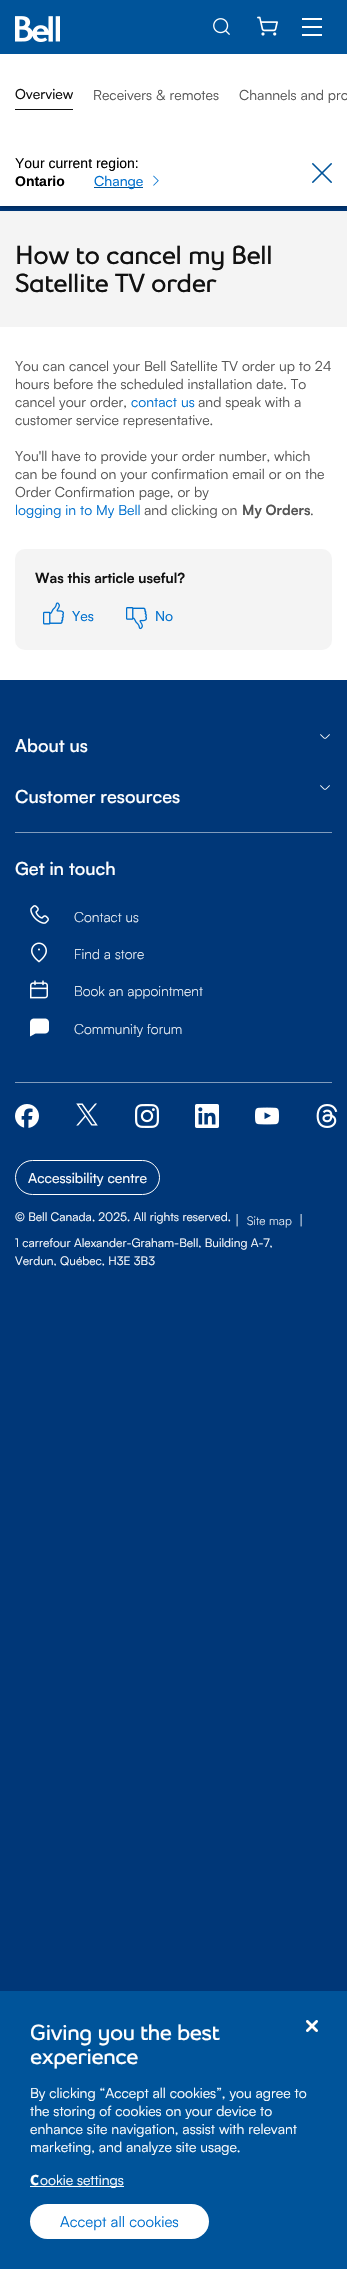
void draw(SkCanvas* canvas) {
	SkPaint paint;
	paint.setAntiAlias(true);
	auto spacedText = [&](const char* s, float x, float y, const SkFont& font, const SkPaint& ink, float letter, float word) {
		std::vector<SkGlyphID> glyphs(font.countText(s, strlen(s), SkTextEncoding::kUTF8));
		std::vector<float> xs(glyphs.size());
		font.textToGlyphs(s, strlen(s), SkTextEncoding::kUTF8, glyphs);
		font.getXPos(glyphs, xs, x);
		float extra = 0;
		for (size_t i = 0; i < glyphs.size(); i++) {
			xs[i] += extra;
			extra += letter + word * (glyphs[i] == font.unicharToGlyph(' '));
		}
		canvas->drawTextBlob(SkTextBlob::MakeFromPosHGlyphs(glyphs, xs, y, font), 0, 0, ink);
	};
	canvas->clear(0xff003778);
	paint.setColor(0xff00549a);
	canvas->drawRect(SkRect::MakeXYWH(0, 0, 347, 54), paint);
	canvas->drawImageRect(SkImages::DeferredFromEncodedData(SkData::MakeFromFileName("img1.png")), SkRect::MakeXYWH(15, 16, 45, 26), SkSamplingOptions());
	canvas->drawImageRect(SkImages::DeferredFromEncodedData(SkData::MakeFromFileName("img2.png")), SkRect::MakeXYWH(213, 18, 17, 17), SkSamplingOptions());
	canvas->drawImageRect(SkImages::DeferredFromEncodedData(SkData::MakeFromFileName("img3.png")), SkRect::MakeXYWH(257, 16, 21, 20), SkSamplingOptions());
	paint.setColor(0xffffffff);
	canvas->drawRect(SkRect::MakeXYWH(302, 18, 20, 2), paint);
	canvas->drawRect(SkRect::MakeXYWH(302, 26, 20, 2), paint);
	canvas->drawRect(SkRect::MakeXYWH(302, 34, 20, 2), paint);
	paint.setColor(0xfff4f4f4);
	canvas->drawRect(SkRect::MakeXYWH(0, 211, 347, 116), paint);
	paint.setColor(0x80000000);
	paint.setMaskFilter(SkMaskFilter::MakeBlur(kNormal_SkBlurStyle, 2.5));
	canvas->drawRect(SkRect::MakeXYWH(0, 140, 347, 66), paint);
	paint.setMaskFilter(nullptr);
	paint.setColor(0xffffffff);
	canvas->drawRect(SkRect::MakeXYWH(0, 54, 347, 152), paint);
	paint.setColor(0xff111111);
	canvas->drawRect(SkRect::MakeXYWH(15, 109, 58, 1), paint);
	SkFont f1(fontMgr->matchFamilyStyle("Satoshi", SkFontStyle::Normal()), 14);
	f1.setSubpixel(true);
	canvas->drawString("Overview", 15, 99, f1, paint);
	SkFont f2(fontMgr->matchFamilyStyle("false", SkFontStyle::Normal()), 14);
	f2.setSubpixel(true);
	paint.setColor(0xff555555);
	canvas->drawString("Receivers & remotes", 93, 100, f2, paint);
	canvas->drawString("Channels and pro", 239, 100, f2, paint);
	SkFont f3(fontMgr->matchFamilyStyle("Liberation Sans", SkFontStyle::Normal()), 14);
	f3.setSubpixel(true);
	paint.setColor(0xff000000);
	canvas->drawString("Your current region:", 15, 168, f3, paint);
	SkFont f4(fontMgr->matchFamilyStyle("Liberation Sans", SkFontStyle::Bold()), 14);
	f4.setSubpixel(true);
	canvas->drawString("Ontario", 15, 186, f4, paint);
	paint.setColor(0xff00549a);
	canvas->drawRect(SkRect::MakeXYWH(94, 187, 49, 1), paint);
	paint.setColor(0xff0070ce);
	canvas->drawString("Change", 94, 186, f1, paint);
	canvas->drawImageRect(SkImages::DeferredFromEncodedData(SkData::MakeFromFileName("img4.png")), SkRect::MakeXYWH(153, 175, 6, 11), SkSamplingOptions());
	canvas->drawImageRect(SkImages::DeferredFromEncodedData(SkData::MakeFromFileName("img5.png")), SkRect::MakeXYWH(312, 163, 20, 20), SkSamplingOptions());
	paint.setColor(0xffffffff);
	canvas->drawRect(SkRect::MakeXYWH(0, 327, 347, 353), paint);
	SkFont f5(fontMgr->matchFamilyStyle("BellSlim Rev", SkFontStyle(900, SkFontStyle::kNormal_Width, SkFontStyle::kUpright_Slant)), 26);
	f5.setSubpixel(true);
	paint.setColor(0xff111111);
	spacedText("How to cancel my Bell", 15, 264, f5, paint, -0.4, 0);
	spacedText("Satellite TV order", 15, 292, f5, paint, -0.4, 0);
	SkFont f6(fontMgr->matchFamilyStyle("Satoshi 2", SkFontStyle::Normal()), 14);
	f6.setSubpixel(true);
	paint.setColor(0xff555555);
	canvas->drawString("You can cancel your Bell Satellite TV order up to 24", 15, 371, f6, paint);
	canvas->drawString("hours before the scheduled installation date. To", 15, 389, f6, paint);
	canvas->drawString("cancel your order,", 15, 407, f6, paint);
	paint.setColor(0xff0070ce);
	canvas->drawString("contact us", 131, 407, f6, paint);
	paint.setColor(0xff555555);
	canvas->drawString("and speak with a", 198, 407, f6, paint);
	canvas->drawString("customer service representative.", 15, 425, f6, paint);
	canvas->drawString("You'll have to provide your order number, which", 15, 461, f6, paint);
	canvas->drawString("can be found on your confirmation email or on the", 15, 479, f6, paint);
	canvas->drawString("Order Confirmation page, or by", 15, 497, f6, paint);
	paint.setColor(0xff0070ce);
	canvas->drawString("logging in to My Bell", 15, 515, f6, paint);
	paint.setColor(0xff555555);
	canvas->drawString("and clicking on", 144, 515, f6, paint);
	SkFont f7(fontMgr->matchFamilyStyle("Satoshi", SkFontStyle::Bold()), 14);
	f7.setSubpixel(true);
	canvas->drawString("My Orders", 242, 515, f7, paint);
	canvas->drawString(".", 310, 515, f6, paint);
	paint.setColor(0xfff4f4f4);
	canvas->drawRoundRect(SkRect::MakeXYWH(15, 549, 317, 101), 10, 10, paint);
	paint.setColor(0xff111111);
	canvas->drawString("Was this article useful?", 35, 583, f7, paint);
	canvas->drawImageRect(SkImages::DeferredFromEncodedData(SkData::MakeFromFileName("img6.png")), SkRect::MakeXYWH(43, 602, 21, 23), SkSamplingOptions());
	paint.setColor(0xff0070ce);
	canvas->drawString("Yes", 72, 621, f1, paint);
	canvas->drawImageRect(SkImages::DeferredFromEncodedData(SkData::MakeFromFileName("img7.png")), SkRect::MakeXYWH(126, 607, 21, 23), SkSamplingOptions());
	canvas->drawString("No", 155, 621, f1, paint);
	canvas->drawImageRect(SkImages::DeferredFromEncodedData(SkData::MakeFromFileName("img8.png")), SkRect::MakeXYWH(320, 734, 10, 5), SkSamplingOptions());
	SkFont f8(fontMgr->matchFamilyStyle("Satoshi", SkFontStyle(500, SkFontStyle::kNormal_Width, SkFontStyle::kUpright_Slant)), 18);
	f8.setSubpixel(true);
	paint.setColor(0xffffffff);
	canvas->drawString("About us", 15, 752, f8, paint);
	canvas->drawImageRect(SkImages::DeferredFromEncodedData(SkData::MakeFromFileName("img8.png")), SkRect::MakeXYWH(320, 785, 10, 5), SkSamplingOptions());
	canvas->drawString("Customer resources", 15, 803, f8, paint);
	paint.setColor(0xff809bbc);
	canvas->drawRect(SkRect::MakeXYWH(15, 832, 317, 1), paint);
	paint.setColor(0xffffffff);
	canvas->drawString("Get in touch", 15, 875, f8, paint);
	canvas->drawImageRect(SkImages::DeferredFromEncodedData(SkData::MakeFromFileName("img9.png")), SkRect::MakeXYWH(30, 905, 19, 19), SkSamplingOptions());
	SkFont f9(fontMgr->matchFamilyStyle("Satoshi", SkFontStyle(300, SkFontStyle::kNormal_Width, SkFontStyle::kUpright_Slant)), 14);
	f9.setSubpixel(true);
	canvas->drawString("Contact us", 74, 922, f9, paint);
	canvas->drawImageRect(SkImages::DeferredFromEncodedData(SkData::MakeFromFileName("img10.png")), SkRect::MakeXYWH(31, 942, 16, 21), SkSamplingOptions());
	canvas->drawString("Find a store", 74, 959, f9, paint);
	canvas->drawImageRect(SkImages::DeferredFromEncodedData(SkData::MakeFromFileName("img11.png")), SkRect::MakeXYWH(30, 980, 18, 19), SkSamplingOptions());
	canvas->drawString("Book an appointment", 74, 996, f9, paint);
	canvas->drawImageRect(SkImages::DeferredFromEncodedData(SkData::MakeFromFileName("img12.png")), SkRect::MakeXYWH(30, 1018, 19, 19), SkSamplingOptions());
	canvas->drawString("Community forum", 74, 1034, f9, paint);
	paint.setColor(0xff809bbc);
	canvas->drawRect(SkRect::MakeXYWH(15, 1082, 317, 1), paint);
	canvas->drawImageRect(SkImages::DeferredFromEncodedData(SkData::MakeFromFileName("img13.png")), SkRect::MakeXYWH(15, 1104, 24, 24), SkSamplingOptions());
	canvas->drawImageRect(SkImages::DeferredFromEncodedData(SkData::MakeFromFileName("img14.png")), SkRect::MakeXYWH(76, 1103, 22, 23), SkSamplingOptions());
	canvas->drawImageRect(SkImages::DeferredFromEncodedData(SkData::MakeFromFileName("img15.png")), SkRect::MakeXYWH(135, 1104, 24, 24), SkSamplingOptions());
	canvas->drawImageRect(SkImages::DeferredFromEncodedData(SkData::MakeFromFileName("img16.png")), SkRect::MakeXYWH(195, 1104, 24, 24), SkSamplingOptions());
	canvas->drawImageRect(SkImages::DeferredFromEncodedData(SkData::MakeFromFileName("img17.png")), SkRect::MakeXYWH(255, 1107, 24, 18), SkSamplingOptions());
	canvas->drawImageRect(SkImages::DeferredFromEncodedData(SkData::MakeFromFileName("img18.png")), SkRect::MakeXYWH(316, 1104, 22, 24), SkSamplingOptions());
	paint.setStroke(true);
	paint.setStrokeWidth(1);
	paint.setColor(0xffffffff);
	canvas->drawRoundRect(SkRect::MakeXYWH(15.5, 1160.5, 144, 34), 17, 17, paint);
	paint.setStroke(false);
	canvas->drawString("Accessibility centre", 28, 1183, f1, paint);
	SkFont f10(fontMgr->matchFamilyStyle("false", SkFontStyle::Normal()), 12);
	f10.setSubpixel(true);
	canvas->drawString("© Bell Canada, 2025. All rights reserved.", 15, 1221, f10, paint);
	canvas->drawString("|", 235, 1225, f9, paint);
	SkFont f11(fontMgr->matchFamilyStyle("Satoshi", SkFontStyle(300, SkFontStyle::kNormal_Width, SkFontStyle::kUpright_Slant)), 12);
	f11.setSubpixel(true);
	canvas->drawString("Site map", 247, 1225, f11, paint);
	canvas->drawString("|", 299, 1225, f9, paint);
	canvas->drawString("1 carrefour Alexander-Graham-Bell, Building A-7,", 15, 1247, f10, paint);
	canvas->drawString("Verdun, Québec, H3E 3B3", 15, 1265, f10, paint);
	paint.setColor(0xff00549a);
	canvas->drawRect(SkRect::MakeXYWH(0, 1991, 347, 278), paint);
	SkFont f12(fontMgr->matchFamilyStyle("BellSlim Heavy", SkFontStyle(900, SkFontStyle::kNormal_Width, SkFontStyle::kUpright_Slant)), 22);
	f12.setSubpixel(true);
	paint.setColor(0xffffffff);
	spacedText("Giving you the best", 30, 2040, f12, paint, -0.4, 0);
	spacedText("experience", 30, 2064, f12, paint, -0.4, 0);
	canvas->drawString("By clicking “Accept all cookies”, you agree to", 30, 2098, f6, paint);
	canvas->drawString("the storing of cookies on your device to", 30, 2116, f6, paint);
	canvas->drawString("enhance site navigation, assist with relevant", 30, 2134, f6, paint);
	canvas->drawString("marketing, and analyze site usage.", 30, 2152, f6, paint);
	SkFont f13(fontMgr->matchFamilyStyle("Noto Sans", SkFontStyle(800, SkFontStyle::kNormal_Width, SkFontStyle::kUpright_Slant)), 14);
	f13.setSubpixel(true);
	canvas->drawString("C", 30, 2185, f13, paint);
	canvas->drawRect(SkRect::MakeXYWH(30, 2186, 94, 1), paint);
	canvas->drawString("ookie settings", 40, 2185, f6, paint);
	canvas->drawRoundRect(SkRect::MakeXYWH(30, 2204, 179, 35), 17.5, 17.5, paint);
	SkFont f14(fontMgr->matchFamilyStyle("Satoshi 2", SkFontStyle::Normal()), 15);
	f14.setSubpixel(true);
	paint.setColor(0xff0070ce);
	canvas->drawString("Accept all cookies", 60, 2227, f14, paint);
	canvas->drawImageRect(SkImages::DeferredFromEncodedData(SkData::MakeFromFileName("img19.png")), SkRect::MakeXYWH(306, 2021, 11, 11), SkSamplingOptions());
	canvas->drawImageRect(SkImages::DeferredFromEncodedData(SkData::MakeFromFileName("img20.png")), SkRect::MakeXYWH(306, 2020, 12, 12), SkSamplingOptions());
}
